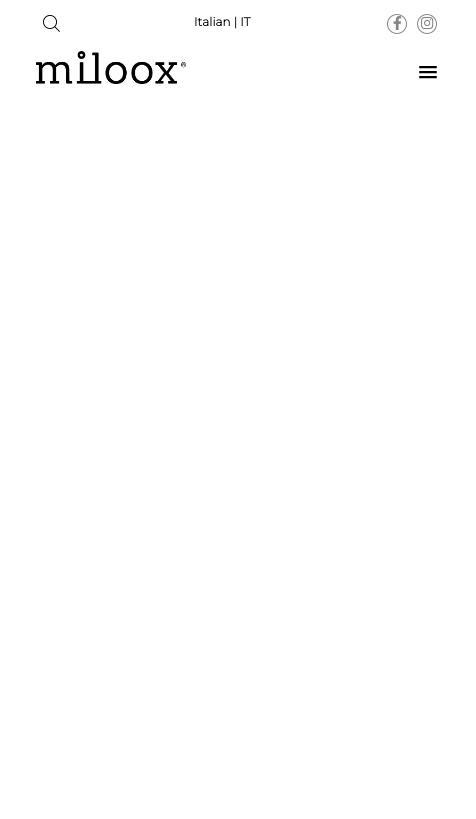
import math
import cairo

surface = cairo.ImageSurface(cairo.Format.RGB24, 476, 819)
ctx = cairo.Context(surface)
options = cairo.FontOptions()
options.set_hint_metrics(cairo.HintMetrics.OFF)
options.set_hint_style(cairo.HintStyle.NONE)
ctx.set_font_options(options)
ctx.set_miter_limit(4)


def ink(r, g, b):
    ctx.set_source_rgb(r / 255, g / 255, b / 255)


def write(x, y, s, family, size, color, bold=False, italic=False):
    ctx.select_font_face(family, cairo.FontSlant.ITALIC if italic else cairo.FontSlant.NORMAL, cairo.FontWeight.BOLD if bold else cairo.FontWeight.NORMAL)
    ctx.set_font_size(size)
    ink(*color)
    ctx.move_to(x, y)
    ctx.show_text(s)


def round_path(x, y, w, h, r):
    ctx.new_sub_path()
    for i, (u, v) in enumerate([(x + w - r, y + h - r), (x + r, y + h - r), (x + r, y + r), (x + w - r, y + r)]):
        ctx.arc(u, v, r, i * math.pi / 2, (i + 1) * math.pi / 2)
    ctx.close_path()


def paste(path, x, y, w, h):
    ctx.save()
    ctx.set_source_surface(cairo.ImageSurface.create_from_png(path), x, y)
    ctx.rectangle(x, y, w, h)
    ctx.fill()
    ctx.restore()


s1 = dict(family="Montserrat", size=12, color=(0, 0, 0), bold=True)

ink(255, 255, 255)
ctx.paint()
paste("pic1.png", 43, 15, 17, 17)
write(194, 26, "Italian | IT", **s1)
ctx.new_path()
ctx.arc(397, 24, 9.5, 0, 2 * math.pi)
ink(134, 134, 134)
ctx.set_line_width(1)
ctx.stroke()
paste("pic2.png", 393, 16, 9, 14)
ctx.arc(427, 24, 9.5, 0, 2 * math.pi)
ctx.stroke()
paste("pic3.png", 421, 16, 13, 14)
paste("pic4.png", 36, 51, 150, 33)
ink(191, 191, 191)
ctx.new_path()
ctx.move_to(419, 67.5)
ctx.curve_to(418, 69.5, 422.5, 69, 422.5, 69)
ctx.line_to(433.5, 69)
ctx.curve_to(433.5, 69, 438, 69.5, 437, 67.5)
ctx.curve_to(436, 68.5, 429.5, 68, 428, 68)
ctx.curve_to(426.5, 68, 420, 68.5, 419, 67.5)
ctx.close_path()
ctx.fill()
ink(0, 0, 0)
round_path(419, 66, 18, 2, 1)
ctx.fill()
ink(191, 191, 191)
ctx.new_path()
ctx.move_to(419, 72.5)
ctx.curve_to(418, 74.5, 422.5, 74, 422.5, 74)
ctx.line_to(433.5, 74)
ctx.curve_to(433.5, 74, 438, 74.5, 437, 72.5)
ctx.curve_to(436, 73.5, 429.5, 73, 428, 73)
ctx.curve_to(426.5, 73, 420, 73.5, 419, 72.5)
ctx.close_path()
ctx.fill()
ink(0, 0, 0)
round_path(419, 71, 18, 2, 1)
ctx.fill()
ink(191, 191, 191)
ctx.new_path()
ctx.move_to(419, 77.5)
ctx.curve_to(418, 79.5, 422.5, 79, 422.5, 79)
ctx.line_to(433.5, 79)
ctx.curve_to(433.5, 79, 438, 79.5, 437, 77.5)
ctx.curve_to(436, 78.5, 429.5, 78, 428, 78)
ctx.curve_to(426.5, 78, 420, 78.5, 419, 77.5)
ctx.close_path()
ctx.fill()
ink(0, 0, 0)
round_path(419, 76, 18, 2, 1)
ctx.fill()
surface.write_to_png("screenshot.png")
